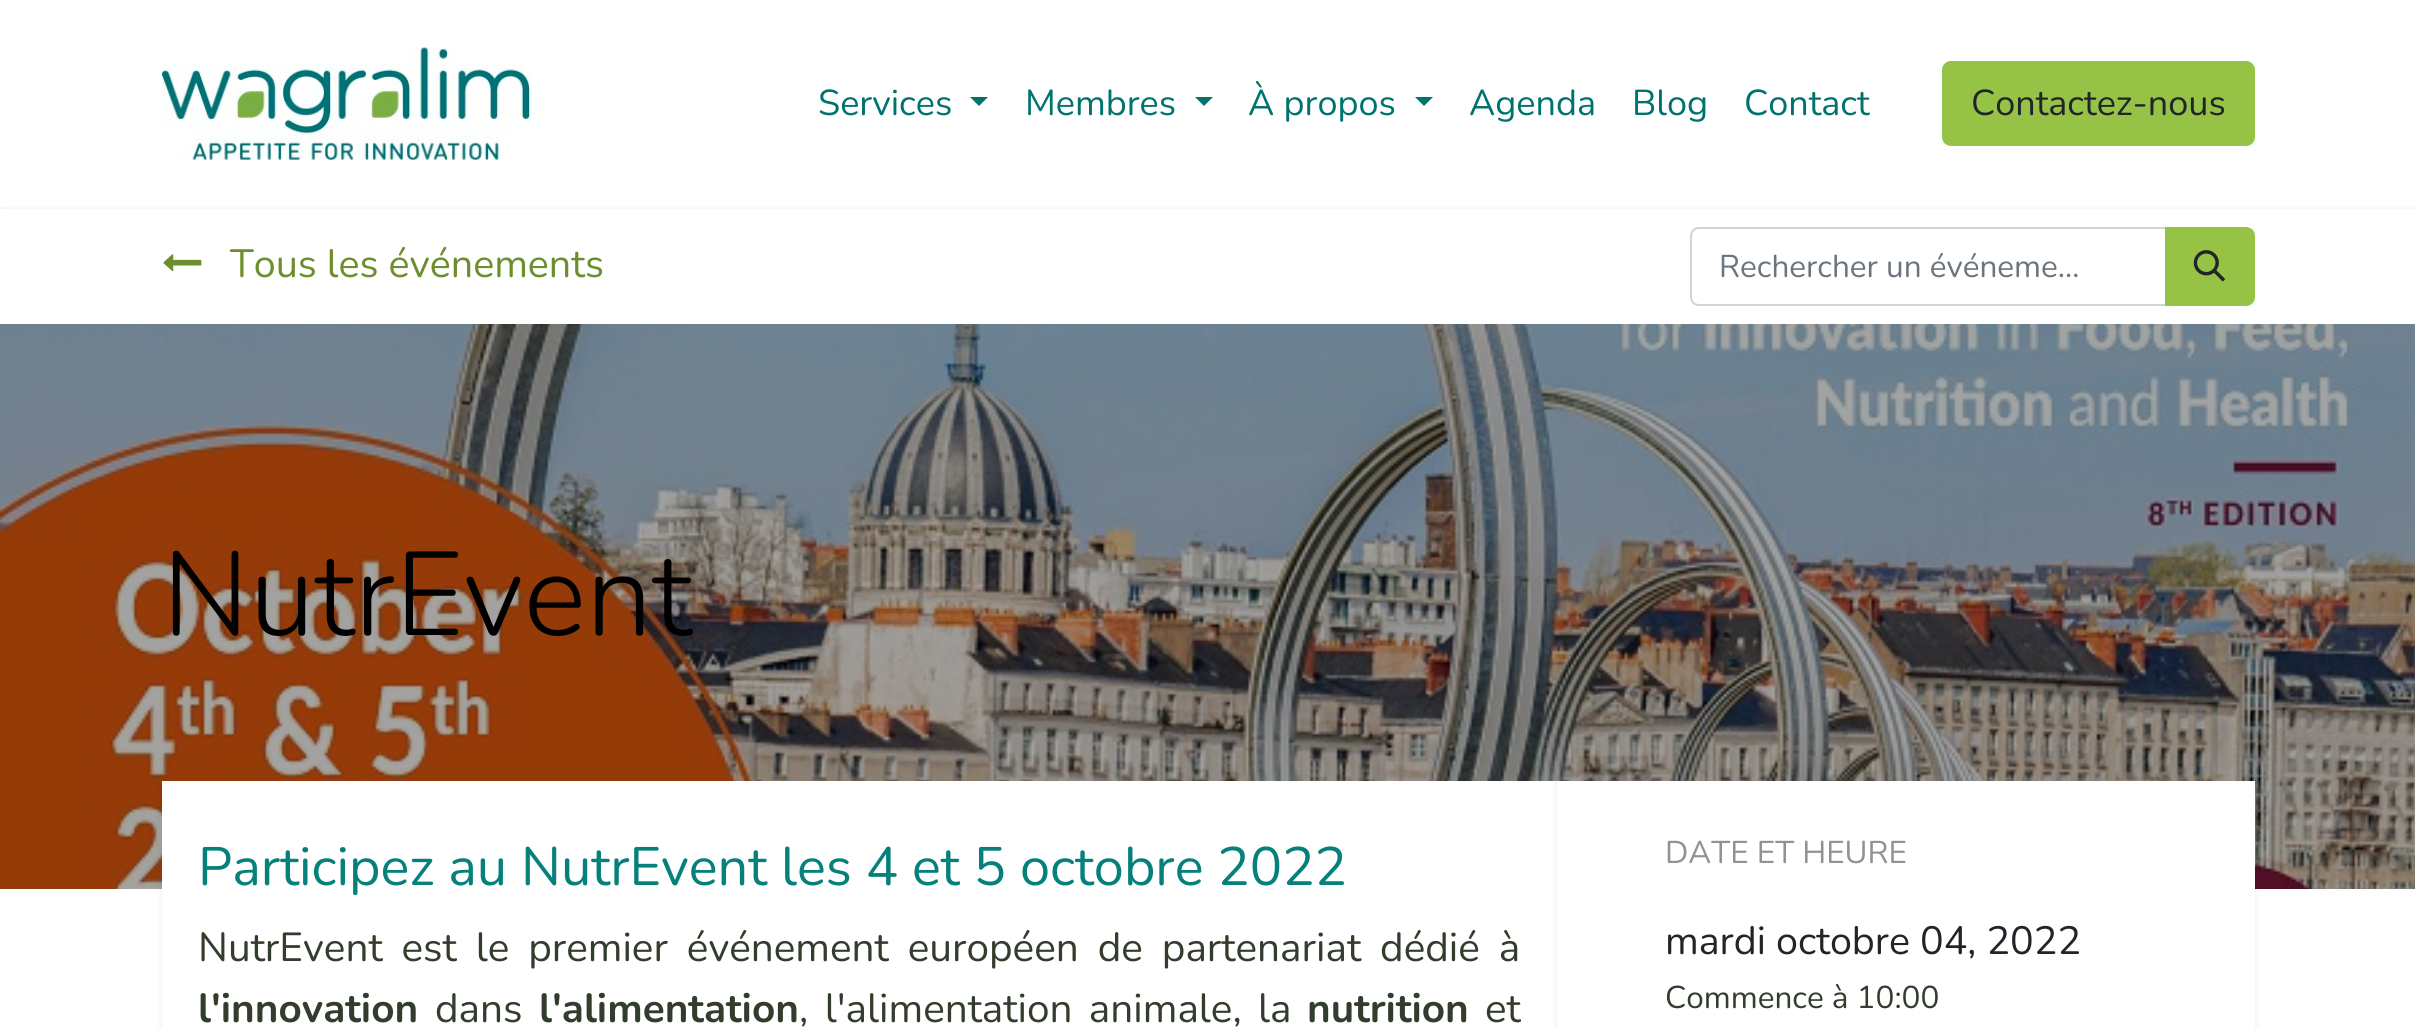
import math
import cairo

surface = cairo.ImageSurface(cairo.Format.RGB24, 2415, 1028)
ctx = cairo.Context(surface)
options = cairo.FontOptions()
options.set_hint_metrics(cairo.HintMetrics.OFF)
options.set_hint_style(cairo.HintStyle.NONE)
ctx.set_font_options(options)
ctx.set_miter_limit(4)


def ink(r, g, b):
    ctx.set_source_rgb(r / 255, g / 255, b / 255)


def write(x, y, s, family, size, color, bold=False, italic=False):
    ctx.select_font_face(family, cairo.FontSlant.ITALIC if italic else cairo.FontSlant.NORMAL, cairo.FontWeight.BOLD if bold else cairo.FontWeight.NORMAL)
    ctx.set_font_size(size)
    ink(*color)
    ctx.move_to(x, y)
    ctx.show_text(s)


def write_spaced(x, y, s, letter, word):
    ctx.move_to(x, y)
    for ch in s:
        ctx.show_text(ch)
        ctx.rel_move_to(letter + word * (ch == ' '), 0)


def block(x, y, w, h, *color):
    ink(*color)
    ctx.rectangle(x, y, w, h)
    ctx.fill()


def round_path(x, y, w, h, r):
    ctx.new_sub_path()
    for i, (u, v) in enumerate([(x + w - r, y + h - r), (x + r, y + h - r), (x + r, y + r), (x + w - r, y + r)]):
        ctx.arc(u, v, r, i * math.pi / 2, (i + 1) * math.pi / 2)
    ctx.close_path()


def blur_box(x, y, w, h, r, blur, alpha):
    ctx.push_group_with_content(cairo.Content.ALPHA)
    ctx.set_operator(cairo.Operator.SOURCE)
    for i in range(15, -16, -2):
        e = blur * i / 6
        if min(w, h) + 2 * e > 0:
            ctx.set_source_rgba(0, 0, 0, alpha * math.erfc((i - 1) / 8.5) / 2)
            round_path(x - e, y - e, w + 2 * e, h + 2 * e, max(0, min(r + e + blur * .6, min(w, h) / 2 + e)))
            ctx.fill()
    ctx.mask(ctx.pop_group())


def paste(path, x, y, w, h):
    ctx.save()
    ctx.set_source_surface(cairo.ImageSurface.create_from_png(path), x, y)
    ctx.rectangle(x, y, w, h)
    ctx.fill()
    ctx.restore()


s1 = dict(family="Nunito", size=36, color=(0, 115, 110))
s2 = dict(family="Nunito", size=36, color=(33, 37, 41))
s3 = dict(family="Nunito", size=39.4, color=(108, 142, 46))
s4 = dict(family="Nunito", size=31.5, color=(108, 117, 125))
s5 = dict(family="Nunito Light", size=118.5, color=(0, 0, 0))
s6 = dict(family="Nunito", size=54, color=(5, 128, 123))
s7 = dict(family="Nunito", size=40.5, color=(51, 61, 45), bold=True)
s8 = dict(family="Nunito", size=40.5, color=(51, 61, 45))
s9 = dict(family="Nunito", size=31.5, color=(144, 146, 148))
s10 = dict(family="Nunito", size=39.4, color=(33, 37, 41))
s11 = dict(family="Nunito", size=31.5, color=(51, 61, 45))

ink(255, 255, 255)
ctx.paint()
block(0, 207, 2415, 2, 222, 226, 230)
ink(255, 255, 255)
blur_box(0, 5, 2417, 207, 0, 4.5, 1)
paste("pic1.png", 162, 47, 369, 113)
write(818, 115, "Services", **s1)
ctx.new_path()
ctx.move_to(970, 97)
ctx.line_to(988, 97)
ctx.line_to(979, 106)
ctx.close_path()
ctx.fill()
write(1025, 115, "Membres", **s1)
ctx.new_path()
ctx.move_to(1195, 97)
ctx.line_to(1213, 97)
ctx.line_to(1204, 106)
ctx.close_path()
ctx.fill()
write(1248, 115, "À propos", **s1)
ctx.new_path()
ctx.move_to(1415, 97)
ctx.line_to(1433, 97)
ctx.line_to(1424, 106)
ctx.close_path()
ctx.fill()
write(1469, 115, "Agenda", **s1)
write(1632, 115, "Blog", **s1)
write(1744, 115, "Contact", **s1)
ink(150, 195, 70)
round_path(1943, 62, 311, 83, 8)
ctx.fill_preserve()
ctx.stroke()
write(1971, 115, "Contactez-nous", **s2)
paste("pic2.png", 163, 254, 39, 18)
write(230, 277, "Tous les événements", **s3)
ctx.new_path()
ctx.move_to(1699, 228)
ctx.line_to(2166, 228)
ctx.line_to(2166, 305)
ctx.line_to(1699, 305)
ctx.curve_to(1694.5, 305, 1691, 301.5, 1691, 297)
ctx.line_to(1691, 236)
ctx.curve_to(1691, 231.5, 1694.5, 228, 1699, 228)
ctx.close_path()
ink(206, 212, 218)
ctx.stroke()
write(1719, 277, "Rechercher un événeme…", **s4)
ink(150, 195, 70)
ctx.new_path()
ctx.move_to(2166, 228)
ctx.line_to(2246, 228)
ctx.curve_to(2250.5, 228, 2254, 231.5, 2254, 236)
ctx.line_to(2254, 297)
ctx.curve_to(2254, 301.5, 2250.5, 305, 2246, 305)
ctx.line_to(2166, 305)
ctx.close_path()
ctx.fill_preserve()
ctx.stroke()
paste("pic3.png", 2193, 250, 33, 32)
paste("pic4.png", 0, 324, 2415, 565)
write(162, 635, "NutrEvent", **s5)
ctx.save()
ctx.rectangle(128, 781, 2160, 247)
ctx.clip()
ink(0, 0, 0)
blur_box(162, 731, 1395, 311, 0, 4.5, 0.07)
ctx.restore()
block(162, 781, 1395, 247, 255, 255, 255)
write(198, 885, "Participez au NutrEvent les 4 et 5 octobre 2022", **s6)
ctx.set_font_size(40.5)
ink(51, 61, 45)
write_spaced(198, 961, "NutrEvent est le premier événement européen de partenariat dédié à", 0, 8.5)
write(198, 1022, "l'innovation", **s7)
write(435, 1022, "dans", **s8)
write(539, 1022, "l'alimentation", **s7)
ctx.select_font_face("Nunito")
write_spaced(799, 1022, ", l'alimentation animale, la", 0, 6)
write(1307, 1022, "nutrition", **s7)
write(1485, 1022, "et", **s8)
ctx.save()
ctx.rectangle(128, 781, 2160, 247)
ctx.clip()
ink(0, 0, 0)
blur_box(1557, 731, 698, 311, 0, 4.5, 0.07)
ctx.restore()
block(1557, 781, 698, 247, 255, 255, 255)
write(1665, 863, "DATE ET HEURE", **s9)
write(1665, 954, "mardi octobre 04, 2022", **s10)
write(1665, 1008, "Commence à 10:00", **s11)
surface.write_to_png("screenshot.png")
